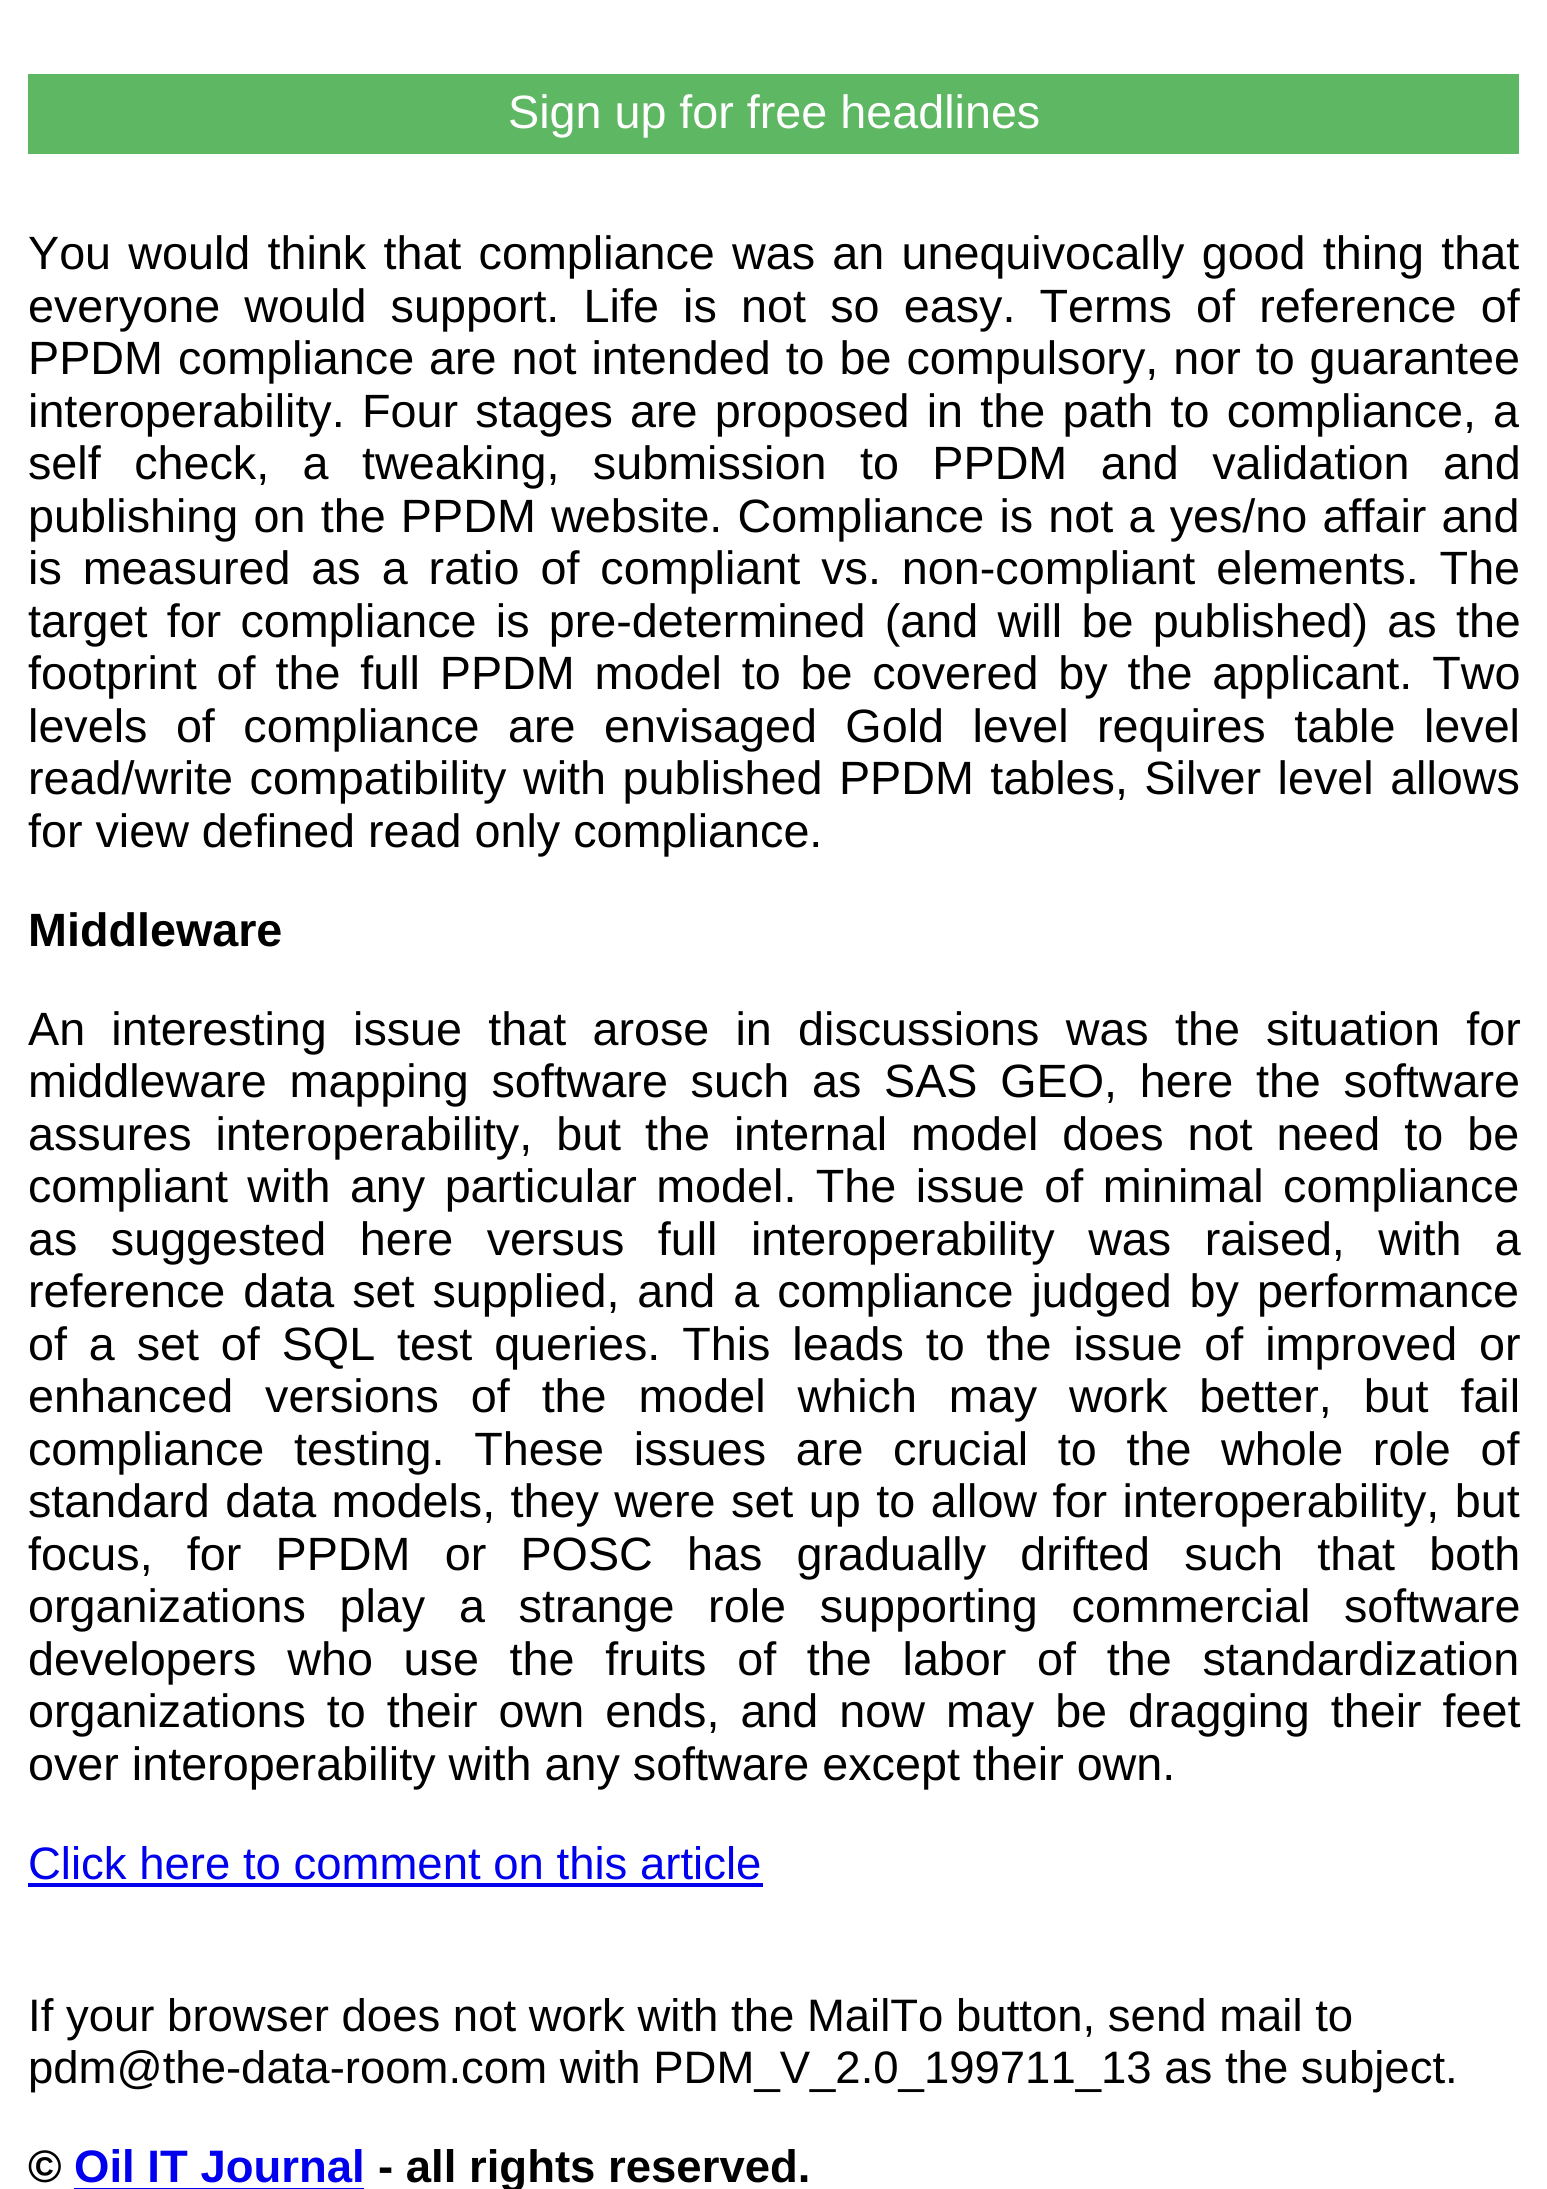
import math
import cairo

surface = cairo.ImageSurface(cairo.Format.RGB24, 1547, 2189)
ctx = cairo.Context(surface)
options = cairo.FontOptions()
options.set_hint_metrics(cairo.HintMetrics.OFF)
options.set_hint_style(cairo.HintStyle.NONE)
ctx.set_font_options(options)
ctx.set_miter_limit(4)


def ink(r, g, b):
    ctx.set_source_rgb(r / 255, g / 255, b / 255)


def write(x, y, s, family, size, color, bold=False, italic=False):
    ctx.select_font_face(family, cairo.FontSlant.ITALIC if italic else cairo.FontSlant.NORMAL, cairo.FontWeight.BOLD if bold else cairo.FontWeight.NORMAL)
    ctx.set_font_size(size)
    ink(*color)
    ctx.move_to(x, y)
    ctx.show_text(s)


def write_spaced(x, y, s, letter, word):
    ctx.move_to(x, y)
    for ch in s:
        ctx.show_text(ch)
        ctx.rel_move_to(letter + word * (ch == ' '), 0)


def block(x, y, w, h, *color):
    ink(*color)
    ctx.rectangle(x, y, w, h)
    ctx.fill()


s1 = dict(family="Liberation Sans", size=46.7, color=(255, 255, 255))
s2 = dict(family="Liberation Sans", size=46.7, color=(0, 0, 0))
s3 = dict(family="Liberation Sans", size=46.7, color=(0, 0, 0), bold=True)
s4 = dict(family="Liberation Sans", size=45.5, color=(0, 0, 238))
s5 = dict(family="Liberation Sans", size=45.5, color=(0, 0, 0))
s6 = dict(family="Liberation Sans", size=45.5, color=(0, 0, 0), bold=True)
s7 = dict(family="Liberation Sans", size=45.5, color=(0, 0, 238), bold=True)

ink(255, 255, 255)
ctx.paint()
block(28, 74, 1491, 80, 94, 183, 98)
write(508, 128, "Sign up for free headlines", **s1)
ink(0, 0, 0)
write_spaced(28, 269, "You would think that compliance was an unequivocally good thing that", 0, 4.25)
write_spaced(28, 322, "everyone would support. Life is not so easy. Terms of reference of", 0, 11.25)
write_spaced(28, 374, "PPDM compliance are not intended to be compulsory, nor to guarantee", 0, 2)
write_spaced(28, 427, "interoperability. Four stages are proposed in the path to compliance, a", 0, 4.25)
write_spaced(28, 479, "self check, a tweaking, submission to PPDM and validation and", 0, 20.5)
write_spaced(28, 532, "publishing on the PPDM website. Compliance is not a yes/no affair and", 0, 2.25)
write_spaced(28, 584, "is measured as a ratio of compliant vs. non-compliant elements. The", 0, 8)
write_spaced(28, 637, "target for compliance is pre-determined (and will be published) as the", 0, 6.25)
write_spaced(28, 689, "footprint of the full PPDM model to be covered by the applicant. Two", 0, 6.9)
write_spaced(28, 742, "levels of compliance are envisaged Gold level requires table level", 0, 15.5)
write_spaced(28, 794, "read/write compatibility with published PPDM tables, Silver level allows", 0, 3.5)
write(28, 847, "for view defined read only compliance.", **s2)
write(28, 946, "Middleware", **s3)
ctx.select_font_face("Liberation Sans")
write_spaced(28, 1045, "An interesting issue that arose in discussions was the situation for", 0, 13.25)
write_spaced(28, 1097, "middleware mapping software such as SAS GEO, here the software", 0, 9.75)
write_spaced(28, 1150, "assures interoperability, but the internal model does not need to be", 0, 11)
write_spaced(28, 1202, "compliant with any particular model. The issue of minimal compliance", 0, 6.5)
write_spaced(28, 1255, "as suggested here versus full interoperability was raised, with a", 0, 20.5)
write_spaced(28, 1307, "reference data set supplied, and a compliance judged by performance", 0, 5)
write_spaced(28, 1360, "of a set of SQL test queries. This leads to the issue of improved or", 0, 8.9)
write_spaced(28, 1412, "enhanced versions of the model which may work better, but fail", 0, 18.9)
write_spaced(28, 1465, "compliance testing. These issues are crucial to the whole role of", 0, 16.75)
write_spaced(28, 1517, "standard data models, they were set up to allow for interoperability, but", 0, 2.5)
write_spaced(28, 1570, "focus, for PPDM or POSC has gradually drifted such that both", 0, 21.25)
write_spaced(28, 1622, "organizations play a strange role supporting commercial software", 0, 20.75)
write_spaced(28, 1675, "developers who use the fruits of the labor of the standardization", 0, 17.75)
write_spaced(28, 1727, "organizations to their own ends, and now may be dragging their feet", 0, 8)
write(28, 1780, "over interoperability with any software except their own.", **s2)
write(28, 1879, "Click here to comment on this article", **s4)
block(28, 1883, 735, 4, 0, 0, 238)
write(28, 2031, "If your browser does not work with the MailTo button, send mail to", **s5)
write(28, 2083, "pdm@the-data-room.com with PDM_V_2.0_199711_13 as the subject.", **s5)
write(28, 2182, "©", **s6)
write(74, 2182, "Oil IT Journal", **s7)
block(74, 2188, 290, 1, 0, 0, 238)
write(378, 2182, "- all rights reserved.", **s6)
surface.write_to_png("screenshot.png")
